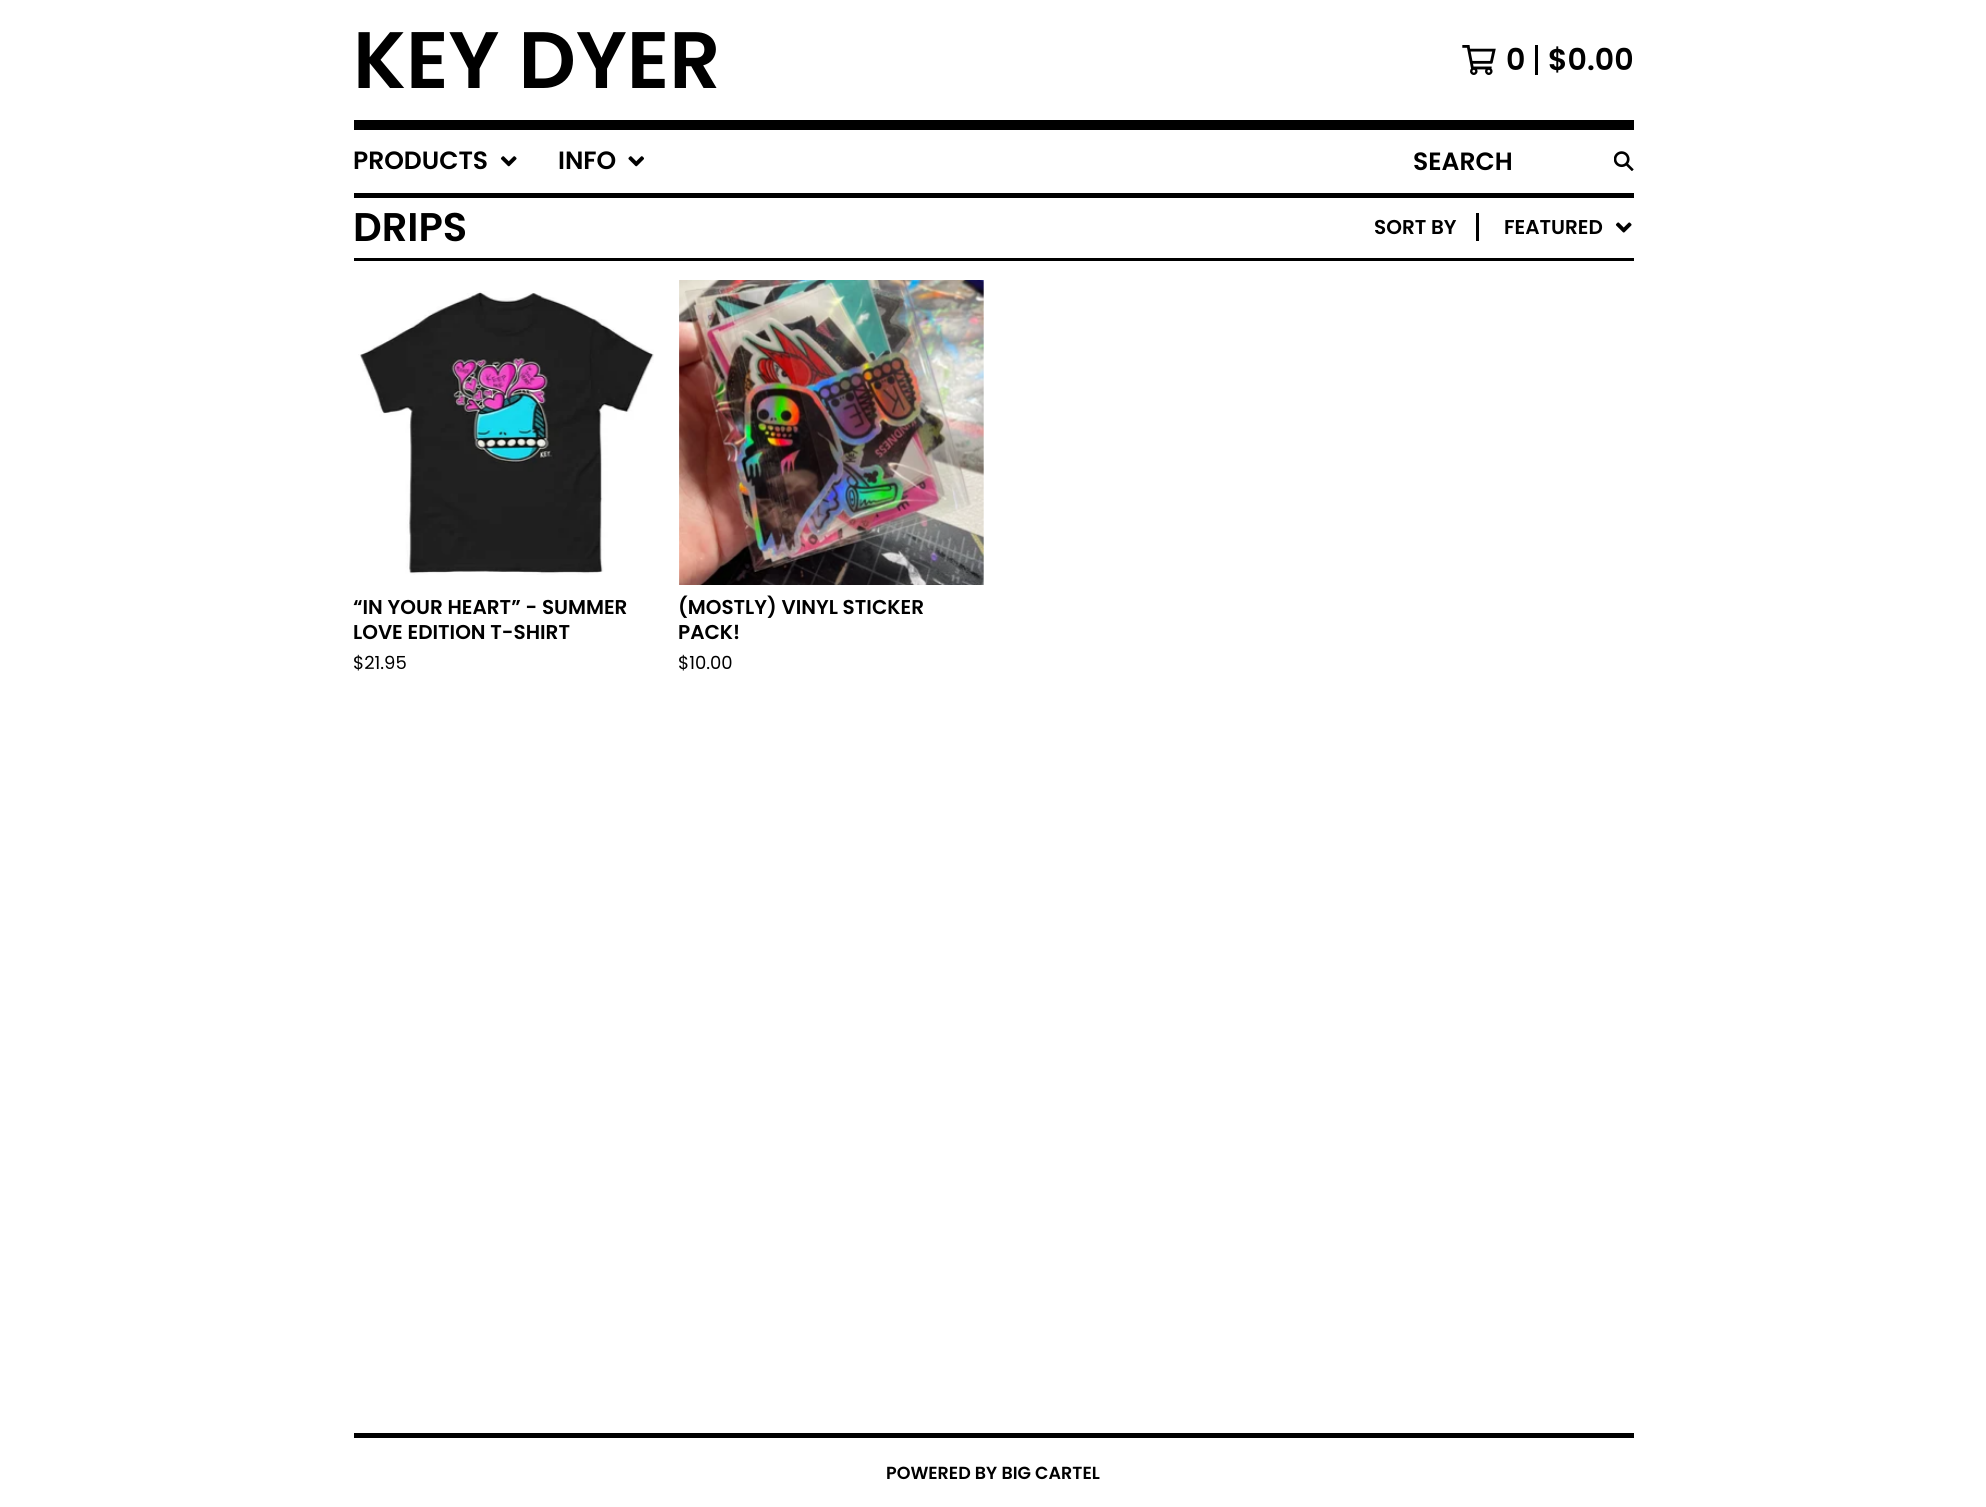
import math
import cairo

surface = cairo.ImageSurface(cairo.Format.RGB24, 1986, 1507)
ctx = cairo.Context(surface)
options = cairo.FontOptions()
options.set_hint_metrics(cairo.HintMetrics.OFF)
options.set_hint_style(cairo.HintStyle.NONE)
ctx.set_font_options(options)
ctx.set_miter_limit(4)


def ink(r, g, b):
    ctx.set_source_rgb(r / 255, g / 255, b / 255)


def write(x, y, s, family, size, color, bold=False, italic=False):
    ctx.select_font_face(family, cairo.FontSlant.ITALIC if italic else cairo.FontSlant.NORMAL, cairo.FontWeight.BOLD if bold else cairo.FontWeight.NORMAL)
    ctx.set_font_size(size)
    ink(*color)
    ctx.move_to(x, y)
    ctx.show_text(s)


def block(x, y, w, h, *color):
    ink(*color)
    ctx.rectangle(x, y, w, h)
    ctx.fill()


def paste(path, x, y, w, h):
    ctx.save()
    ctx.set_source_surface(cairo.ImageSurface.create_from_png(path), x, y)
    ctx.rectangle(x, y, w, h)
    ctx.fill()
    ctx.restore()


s1 = dict(family="Poppins SemiBold", size=80, color=(0, 0, 0))
s2 = dict(family="Poppins SemiBold", size=30, color=(0, 0, 0))
s3 = dict(family="Poppins SemiBold", size=25, color=(0, 0, 0))
s4 = dict(family="Poppins SemiBold", size=40, color=(0, 0, 0))
s5 = dict(family="Poppins SemiBold", size=20, color=(0, 0, 0))
s6 = dict(family="Poppins", size=18, color=(0, 0, 0))
s7 = dict(family="Poppins SemiBold", size=17.5, color=(0, 0, 0))

ink(255, 255, 255)
ctx.paint()
block(354, 120, 1280, 10, 0, 0, 0)
write(353, 88, "KEY DYER", **s1)
paste("pic1.png", 1462, 45, 34, 30)
block(1535, 45, 3, 30, 0, 0, 0)
write(1506, 70, "0", **s2)
write(1548, 70, "$0.00", **s2)
block(354, 193, 1280, 5, 0, 0, 0)
write(353, 169, "PRODUCTS", **s3)
paste("pic2.png", 500, 156, 17, 11)
write(558, 169, "INFO", **s3)
paste("pic3.png", 628, 156, 16, 11)
write(1413, 170, "SEARCH", **s3)
paste("pic4.png", 1614, 151, 20, 20)
block(354, 258, 1280, 3, 0, 0, 0)
write(353, 241, "DRIPS", **s4)
write(1374, 234, "SORT BY", **s5)
block(1476, 213, 3, 28, 0, 0, 0)
write(1504, 234, "FEATURED", **s5)
paste("pic5.png", 1615, 222, 17, 11)
paste("pic6.png", 358, 291, 296, 284)
write(353, 614, "“IN YOUR HEART” - SUMMER", **s5)
write(353, 639, "LOVE EDITION T-SHIRT", **s5)
write(353, 669, "$21.95", **s6)
paste("pic7.png", 679, 280, 305, 305)
write(678, 614, "(MOSTLY) VINYL STICKER", **s5)
write(678, 639, "PACK!", **s5)
write(678, 669, "$10.00", **s6)
block(354, 1433, 1280, 5, 0, 0, 0)
write(886, 1479, "POWERED BY BIG CARTEL", **s7)
surface.write_to_png("screenshot.png")
